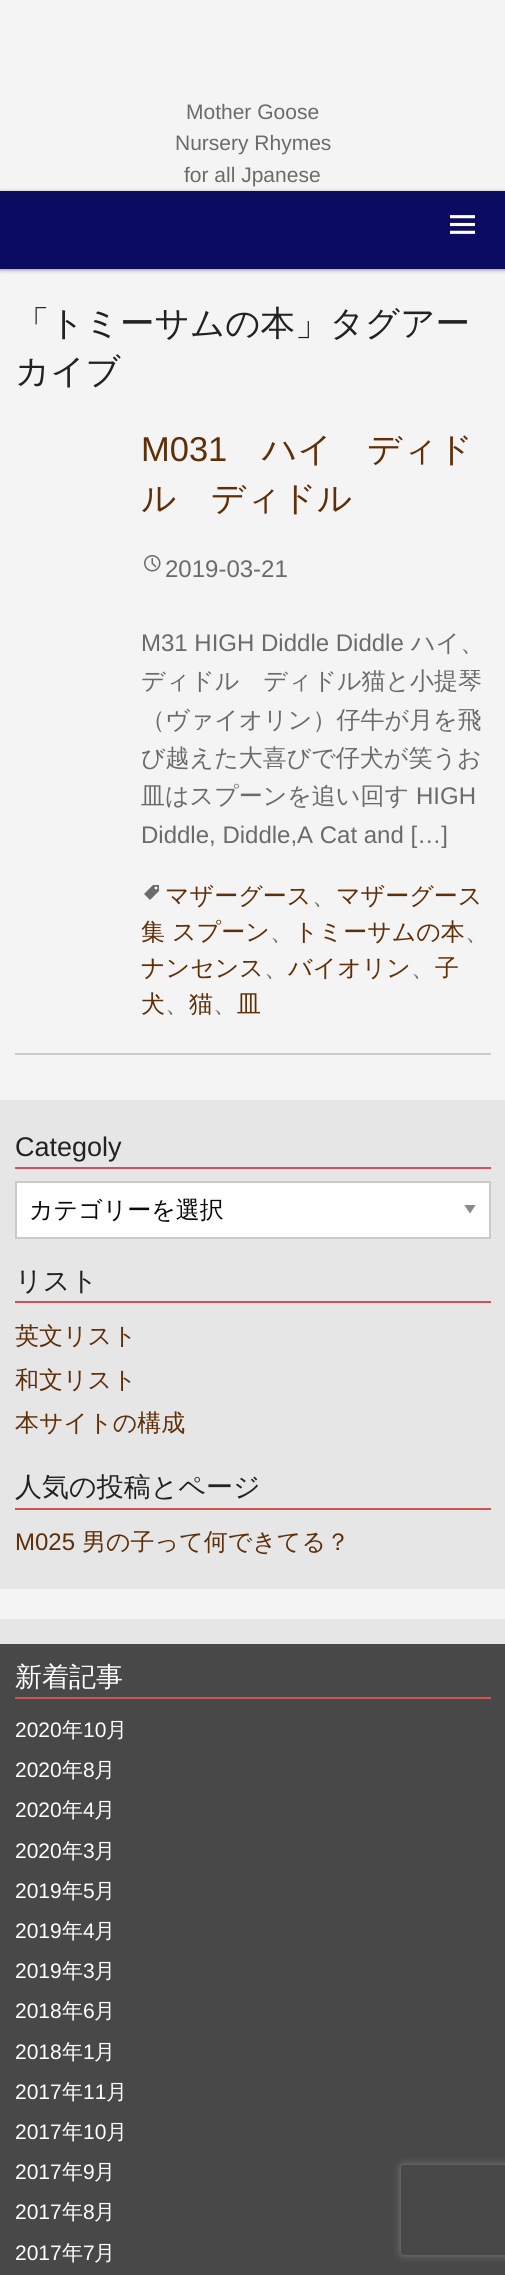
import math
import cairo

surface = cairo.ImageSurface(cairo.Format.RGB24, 505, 2275)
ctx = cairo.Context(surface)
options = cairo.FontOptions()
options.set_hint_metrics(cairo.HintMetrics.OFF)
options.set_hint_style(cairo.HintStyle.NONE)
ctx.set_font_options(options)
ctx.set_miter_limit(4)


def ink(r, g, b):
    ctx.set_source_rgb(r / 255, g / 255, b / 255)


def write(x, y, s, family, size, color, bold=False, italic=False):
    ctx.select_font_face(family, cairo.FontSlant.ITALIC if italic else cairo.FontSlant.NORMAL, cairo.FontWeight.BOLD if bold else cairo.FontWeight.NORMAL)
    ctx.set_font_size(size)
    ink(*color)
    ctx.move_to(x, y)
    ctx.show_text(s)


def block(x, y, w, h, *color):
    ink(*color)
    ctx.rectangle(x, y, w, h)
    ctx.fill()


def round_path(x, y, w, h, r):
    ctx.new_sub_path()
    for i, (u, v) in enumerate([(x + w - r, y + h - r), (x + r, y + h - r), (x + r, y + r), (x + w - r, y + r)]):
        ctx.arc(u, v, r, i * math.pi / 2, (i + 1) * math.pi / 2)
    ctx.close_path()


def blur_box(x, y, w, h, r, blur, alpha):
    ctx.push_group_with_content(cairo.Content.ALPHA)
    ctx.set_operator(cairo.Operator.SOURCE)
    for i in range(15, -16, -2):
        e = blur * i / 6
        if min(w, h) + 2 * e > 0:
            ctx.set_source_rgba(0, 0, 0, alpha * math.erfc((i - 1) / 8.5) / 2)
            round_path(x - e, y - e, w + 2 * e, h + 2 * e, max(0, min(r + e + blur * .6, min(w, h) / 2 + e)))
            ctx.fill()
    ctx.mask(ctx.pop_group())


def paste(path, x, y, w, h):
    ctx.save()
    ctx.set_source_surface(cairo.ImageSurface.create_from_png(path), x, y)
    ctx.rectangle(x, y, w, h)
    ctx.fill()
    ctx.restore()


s1 = dict(family="Liberation Sans", size=21, color=(107, 107, 107))
s2 = dict(family="WenQuanYi Zen Hei Medium", size=34.5, color=(34, 34, 34))
s3 = dict(family="Liberation Sans", size=34.5, color=(95, 47, 8))
s4 = dict(family="WenQuanYi Zen Hei Medium", size=34.5, color=(95, 47, 8))
s5 = dict(family="Liberation Sans", size=24, color=(107, 107, 107))
s6 = dict(family="WenQuanYi Zen Hei Medium", size=24, color=(107, 107, 107))
s7 = dict(family="WenQuanYi Zen Hei Medium", size=24, color=(95, 47, 8))
s8 = dict(family="Liberation Sans", size=27, color=(34, 34, 34))
s9 = dict(family="WenQuanYi Zen Hei Medium", size=24, color=(10, 10, 10))
s10 = dict(family="WenQuanYi Zen Hei Medium", size=27, color=(34, 34, 34))
s11 = dict(family="Liberation Sans", size=24, color=(95, 47, 8))
s12 = dict(family="WenQuanYi Zen Hei Medium", size=27, color=(255, 255, 255))
s13 = dict(family="Liberation Sans", size=21, color=(255, 255, 255))
s14 = dict(family="WenQuanYi Zen Hei Medium", size=21, color=(255, 255, 255))

ink(244, 244, 244)
ctx.paint()
write(186, 119, "Mother Goose", **s1)
write(175, 150, "Nursery Rhymes", **s1)
write(184, 182, "for all Jpanese", **s1)
ink(0, 0, 0)
blur_box(0, 192, 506, 78, 0, 2, 0.4)
block(0, 191, 505, 78, 11, 11, 97)
paste("pic1.png", 450, 215, 25, 19)
write(15, 335, "「トミーサムの本」タグアー", **s2)
write(15, 383, "カイブ", **s2)
block(15, 1053, 476, 2, 204, 204, 204)
write(141, 461, "M031", **s3)
write(262, 461, "ハイ　ディド", **s4)
write(141, 510, "ル　ディドル", **s4)
paste("pic2.png", 144, 555, 17, 17)
write(165, 577, "2019-03-21", **s5)
write(141, 651, "M31 HIGH Diddle Diddle", **s5)
write(411, 651, "ハイ、", **s6)
write(141, 689, "ディドル　ディドル猫と小提琴", **s6)
write(141, 728, "（ヴァイオリン）仔牛が月を飛", **s6)
write(141, 766, "び越えた大喜びで仔犬が笑うお", **s6)
write(141, 804, "皿はスプーンを追い回す", **s6)
write(416, 804, "HIGH", **s5)
write(141, 843, "Diddle, Diddle,A Cat and […]", **s5)
paste("pic3.png", 144, 885, 15, 15)
write(165, 904, "マザーグース", **s7)
write(336, 904, "マザーグース", **s7)
write(312, 904, "、", **s6)
write(141, 940, "集", **s7)
write(172, 940, "スプーン", **s7)
write(270, 940, "、", **s6)
write(294, 940, "トミーサムの本", **s7)
write(465, 940, "、", **s6)
write(141, 976, "ナンセンス", **s7)
write(264, 976, "、", **s6)
write(288, 976, "バイオリン", **s7)
write(411, 976, "、", **s6)
write(435, 976, "子", **s7)
write(141, 1012, "犬", **s7)
write(165, 1012, "、", **s6)
write(189, 1012, "猫", **s7)
write(213, 1012, "、", **s6)
write(237, 1012, "皿", **s7)
block(0, 1100, 505, 489, 230, 230, 230)
block(15, 1167, 476, 2, 208, 82, 82)
write(15, 1156, "Categoly", **s8)
block(17, 1183, 472, 54, 254, 254, 254)
ctx.save()
ctx.rectangle(464, 1205, 13, 9)
ctx.clip()
ink(138, 138, 138)
ctx.new_path()
ctx.move_to(464, 1204.5)
ctx.line_to(476, 1204.5)
ctx.line_to(470, 1213.5)
ctx.close_path()
ctx.fill()
ctx.restore()
ctx.rectangle(16, 1182, 474, 56)
ink(202, 202, 202)
ctx.stroke()
write(29, 1218, "カテゴリーを選択", **s9)
block(15, 1301, 476, 2, 208, 82, 82)
write(15, 1290, "リスト", **s10)
write(15, 1344, "英文リスト", **s7)
write(15, 1388, "和文リスト", **s7)
write(15, 1431, "本サイトの構成", **s7)
block(15, 1508, 476, 2, 208, 82, 82)
write(15, 1496, "人気の投稿とページ", **s10)
write(15, 1550, "M025", **s11)
write(82, 1550, "男の子って何できてる？", **s7)
block(0, 1619, 505, 25, 230, 230, 230)
block(0, 1644, 505, 631, 72, 72, 72)
block(15, 1697, 476, 2, 208, 82, 82)
write(15, 1686, "新着記事", **s12)
write(15, 1737, "2020", **s13)
write(62, 1737, "年", **s14)
write(83, 1737, "10", **s13)
write(106, 1737, "月", **s14)
write(15, 1777, "2020", **s13)
write(62, 1777, "年", **s14)
write(83, 1777, "8", **s13)
write(94, 1777, "月", **s14)
write(15, 1817, "2020", **s13)
write(62, 1817, "年", **s14)
write(83, 1817, "4", **s13)
write(94, 1817, "月", **s14)
write(15, 1858, "2020", **s13)
write(62, 1858, "年", **s14)
write(83, 1858, "3", **s13)
write(94, 1858, "月", **s14)
write(15, 1898, "2019", **s13)
write(62, 1898, "年", **s14)
write(83, 1898, "5", **s13)
write(94, 1898, "月", **s14)
write(15, 1938, "2019", **s13)
write(62, 1938, "年", **s14)
write(83, 1938, "4", **s13)
write(94, 1938, "月", **s14)
write(15, 1978, "2019", **s13)
write(62, 1978, "年", **s14)
write(83, 1978, "3", **s13)
write(94, 1978, "月", **s14)
write(15, 2018, "2018", **s13)
write(62, 2018, "年", **s14)
write(83, 2018, "6", **s13)
write(94, 2018, "月", **s14)
write(15, 2059, "2018", **s13)
write(62, 2059, "年", **s14)
write(83, 2059, "1", **s13)
write(94, 2059, "月", **s14)
write(15, 2099, "2017", **s13)
write(62, 2099, "年", **s14)
write(83, 2099, "11", **s13)
write(106, 2099, "月", **s14)
write(15, 2139, "2017", **s13)
write(62, 2139, "年", **s14)
write(83, 2139, "10", **s13)
write(106, 2139, "月", **s14)
write(15, 2179, "2017", **s13)
write(62, 2179, "年", **s14)
write(83, 2179, "9", **s13)
write(94, 2179, "月", **s14)
write(15, 2219, "2017", **s13)
write(62, 2219, "年", **s14)
write(83, 2219, "8", **s13)
write(94, 2219, "月", **s14)
write(15, 2260, "2017", **s13)
write(62, 2260, "年", **s14)
write(83, 2260, "7", **s13)
write(94, 2260, "月", **s14)
ctx.save()
ctx.set_fill_rule(cairo.FillRule.EVEN_ODD)
ctx.new_path()
ctx.move_to(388, 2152)
ctx.line_to(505, 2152)
ctx.line_to(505, 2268)
ctx.line_to(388, 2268)
ctx.close_path()
ctx.move_to(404, 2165)
ctx.line_to(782, 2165)
ctx.curve_to(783.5, 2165, 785, 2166.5, 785, 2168)
ctx.line_to(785, 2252)
ctx.curve_to(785, 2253.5, 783.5, 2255, 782, 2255)
ctx.line_to(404, 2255)
ctx.curve_to(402.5, 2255, 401, 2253.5, 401, 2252)
ctx.line_to(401, 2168)
ctx.curve_to(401, 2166.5, 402.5, 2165, 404, 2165)
ctx.close_path()
ctx.clip()
ink(128, 128, 128)
blur_box(401, 2165, 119, 90, 3, 4, 1)
ctx.restore()
surface.write_to_png("screenshot.png")
